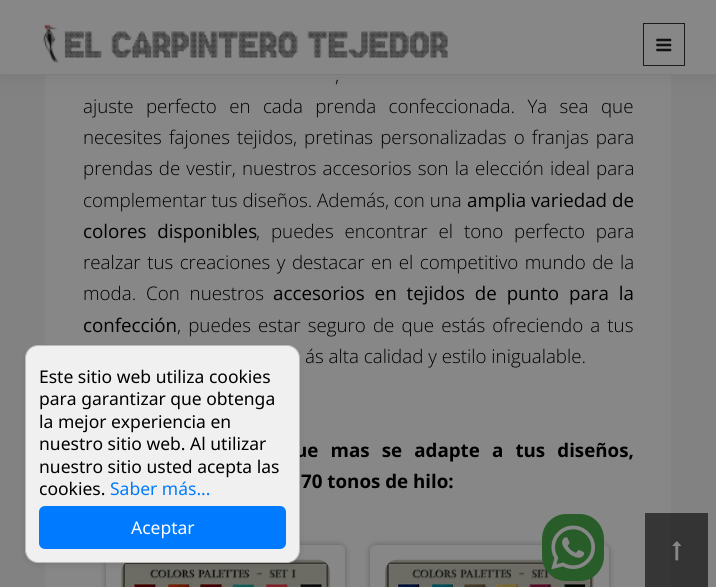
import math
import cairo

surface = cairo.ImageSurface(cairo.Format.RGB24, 716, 587)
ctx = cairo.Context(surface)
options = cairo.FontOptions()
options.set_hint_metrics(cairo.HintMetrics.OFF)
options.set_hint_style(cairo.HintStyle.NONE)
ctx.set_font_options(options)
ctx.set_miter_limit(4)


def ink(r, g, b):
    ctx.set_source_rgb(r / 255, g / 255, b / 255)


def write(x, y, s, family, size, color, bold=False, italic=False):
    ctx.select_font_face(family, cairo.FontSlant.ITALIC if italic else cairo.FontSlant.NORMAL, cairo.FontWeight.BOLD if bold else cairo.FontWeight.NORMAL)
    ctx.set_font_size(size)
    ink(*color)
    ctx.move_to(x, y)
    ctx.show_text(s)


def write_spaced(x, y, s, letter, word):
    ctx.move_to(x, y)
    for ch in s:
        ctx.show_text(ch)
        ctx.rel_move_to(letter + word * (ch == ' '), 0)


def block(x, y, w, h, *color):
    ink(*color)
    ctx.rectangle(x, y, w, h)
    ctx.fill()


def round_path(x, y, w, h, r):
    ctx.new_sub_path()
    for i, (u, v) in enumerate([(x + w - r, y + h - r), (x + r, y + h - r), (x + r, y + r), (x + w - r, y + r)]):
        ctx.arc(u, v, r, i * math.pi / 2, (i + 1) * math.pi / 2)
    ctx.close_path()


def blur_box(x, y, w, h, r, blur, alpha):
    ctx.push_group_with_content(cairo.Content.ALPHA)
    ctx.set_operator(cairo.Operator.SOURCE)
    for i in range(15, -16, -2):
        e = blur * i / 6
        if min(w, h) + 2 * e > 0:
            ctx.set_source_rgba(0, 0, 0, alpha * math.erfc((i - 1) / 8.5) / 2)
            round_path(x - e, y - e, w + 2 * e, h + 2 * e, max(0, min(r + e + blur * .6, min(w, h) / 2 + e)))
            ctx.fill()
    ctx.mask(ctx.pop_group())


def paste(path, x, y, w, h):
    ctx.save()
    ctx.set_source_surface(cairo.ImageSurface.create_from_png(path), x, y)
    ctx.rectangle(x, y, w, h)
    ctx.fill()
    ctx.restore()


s1 = dict(family="Open Sans Light", size=18.75, color=(0, 0, 0))
s2 = dict(family="Open Sans", size=18.75, color=(0, 0, 0))
s3 = dict(family="Open Sans", size=18.75, color=(0, 0, 0), bold=True)
s4 = dict(family="Noto Sans", size=17.5, color=(0, 0, 0))
s5 = dict(family="Noto Sans", size=17.5, color=(0, 123, 255))
s6 = dict(family="Noto Sans", size=17.5, color=(255, 255, 255))

ink(130, 130, 130)
ctx.paint()
block(45, 75, 626, 512, 135, 135, 135)
ink(0, 0, 0)
blur_box(0, -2, 716, 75, 0, 12, 0.1)
block(0, 0, 716, 74, 135, 135, 135)
paste("pic1.png", 43, 24, 405, 39)
ctx.rectangle(643.5, 23.5, 41, 42)
ink(27, 27, 27)
ctx.set_line_width(1)
ctx.stroke()
paste("pic2.png", 656, 38, 16, 14)
ctx.select_font_face("Open Sans Light")
ctx.set_font_size(18.75)
ink(0, 0, 0)
write_spaced(335, 82, ",", 0, 5)
write_spaced(83, 113, "ajuste perfecto en cada prenda confeccionada. Ya sea que", 0, 7.5)
write_spaced(83, 144, "necesites fajones tejidos, pretinas personalizadas o franjas para", 0, 2.25)
write_spaced(83, 175, "prendas de vestir, nuestros accesorios son la elección ideal para", 0, 1.25)
write(83, 207, "complementar tus diseños. Además, con una", **s1)
write(467, 207, "amplia variedad de", **s2)
write_spaced(83, 238, "colores disponibles", 0, 6)
ctx.select_font_face("Open Sans Light")
write_spaced(256, 238, ", puedes encontrar el tono perfecto para", 0, 6)
write_spaced(83, 269, "realzar tus creaciones y destacar en el competitivo mundo de la", 0, 1.6)
write_spaced(83, 300, "moda. Con nuestros", 0, 5)
ctx.select_font_face("Open Sans")
write_spaced(273, 300, "accesorios en tejidos de punto para la", 0, 5)
write(83, 332, "confección", **s2)
ctx.select_font_face("Open Sans Light")
write_spaced(177, 332, ", puedes estar seguro de que estás ofreciendo a tus", 0, 2.25)
write(305, 363, "ás alta calidad y estilo inigualable.", **s1)
ctx.select_font_face("Open Sans", cairo.FontSlant.NORMAL, cairo.FontWeight.BOLD)
write_spaced(295, 457, "ue mas se adapte a tus diseños,", 0, 7.25)
write(301, 488, "70 tonos de hilo:", **s3)
ctx.save()
ctx.set_fill_rule(cairo.FillRule.EVEN_ODD)
ctx.new_path()
ctx.move_to(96, 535)
ctx.line_to(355, 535)
ctx.line_to(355, 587)
ctx.line_to(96, 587)
ctx.close_path()
ctx.move_to(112, 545)
ctx.line_to(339, 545)
ctx.curve_to(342.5, 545, 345, 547.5, 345, 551)
ctx.line_to(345, 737)
ctx.curve_to(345, 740.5, 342.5, 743, 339, 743)
ctx.line_to(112, 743)
ctx.curve_to(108.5, 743, 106, 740.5, 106, 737)
ctx.line_to(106, 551)
ctx.curve_to(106, 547.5, 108.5, 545, 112, 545)
ctx.close_path()
ctx.clip()
ink(0, 0, 0)
blur_box(106, 545, 239, 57, 6, 3, 0.3)
ctx.restore()
paste("pic3.png", 121, 559, 209, 28)
ctx.save()
ctx.set_fill_rule(cairo.FillRule.EVEN_ODD)
ctx.new_path()
ctx.move_to(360, 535)
ctx.line_to(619, 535)
ctx.line_to(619, 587)
ctx.line_to(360, 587)
ctx.close_path()
ctx.move_to(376, 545)
ctx.line_to(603, 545)
ctx.curve_to(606.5, 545, 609, 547.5, 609, 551)
ctx.line_to(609, 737)
ctx.curve_to(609, 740.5, 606.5, 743, 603, 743)
ctx.line_to(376, 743)
ctx.curve_to(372.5, 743, 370, 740.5, 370, 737)
ctx.line_to(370, 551)
ctx.curve_to(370, 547.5, 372.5, 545, 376, 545)
ctx.close_path()
ctx.clip()
ink(0, 0, 0)
blur_box(370, 545, 239, 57, 6, 3, 0.3)
ctx.restore()
paste("pic4.png", 385, 559, 209, 28)
ink(0, 0, 0)
blur_box(25, 348, 275, 217, 13, 3, 0.1)
ink(240, 240, 240)
round_path(25.5, 345.5, 274, 217, 12.5)
ctx.fill_preserve()
ink(191, 184, 184)
ctx.stroke()
write(39, 383, "Este sitio web utiliza cookies", **s4)
write(39, 405, "para garantizar que obtenga", **s4)
write(39, 428, "la mejor experiencia en", **s4)
write(39, 450, "nuestro sitio web. Al utilizar", **s4)
write(39, 473, "nuestro sitio usted acepta las", **s4)
write(39, 495, "cookies.", **s4)
write(110, 495, "Saber más...", **s5)
round_path(39, 506, 247, 43, 6)
ctx.fill()
write(131, 534, "Aceptar", **s6)
ink(40, 93, 42)
ctx.new_path()
ctx.move_to(566, 514)
ctx.line_to(580, 514)
ctx.curve_to(593, 514, 604, 525, 604, 539)
ctx.line_to(604, 556)
ctx.curve_to(604, 570, 593, 581, 580, 581)
ctx.line_to(566, 581)
ctx.curve_to(553, 581, 542, 570, 542, 556)
ctx.line_to(542, 539)
ctx.curve_to(542, 525, 553, 514, 566, 514)
ctx.close_path()
ctx.fill()
paste("pic5.png", 551, 525, 44, 45)
ctx.set_source_rgba(0, 0, 0, 0.6)
ctx.rectangle(645, 513, 63, 74)
ctx.fill()
paste("pic6.png", 672, 541, 9, 20)
surface.write_to_png("screenshot.png")
